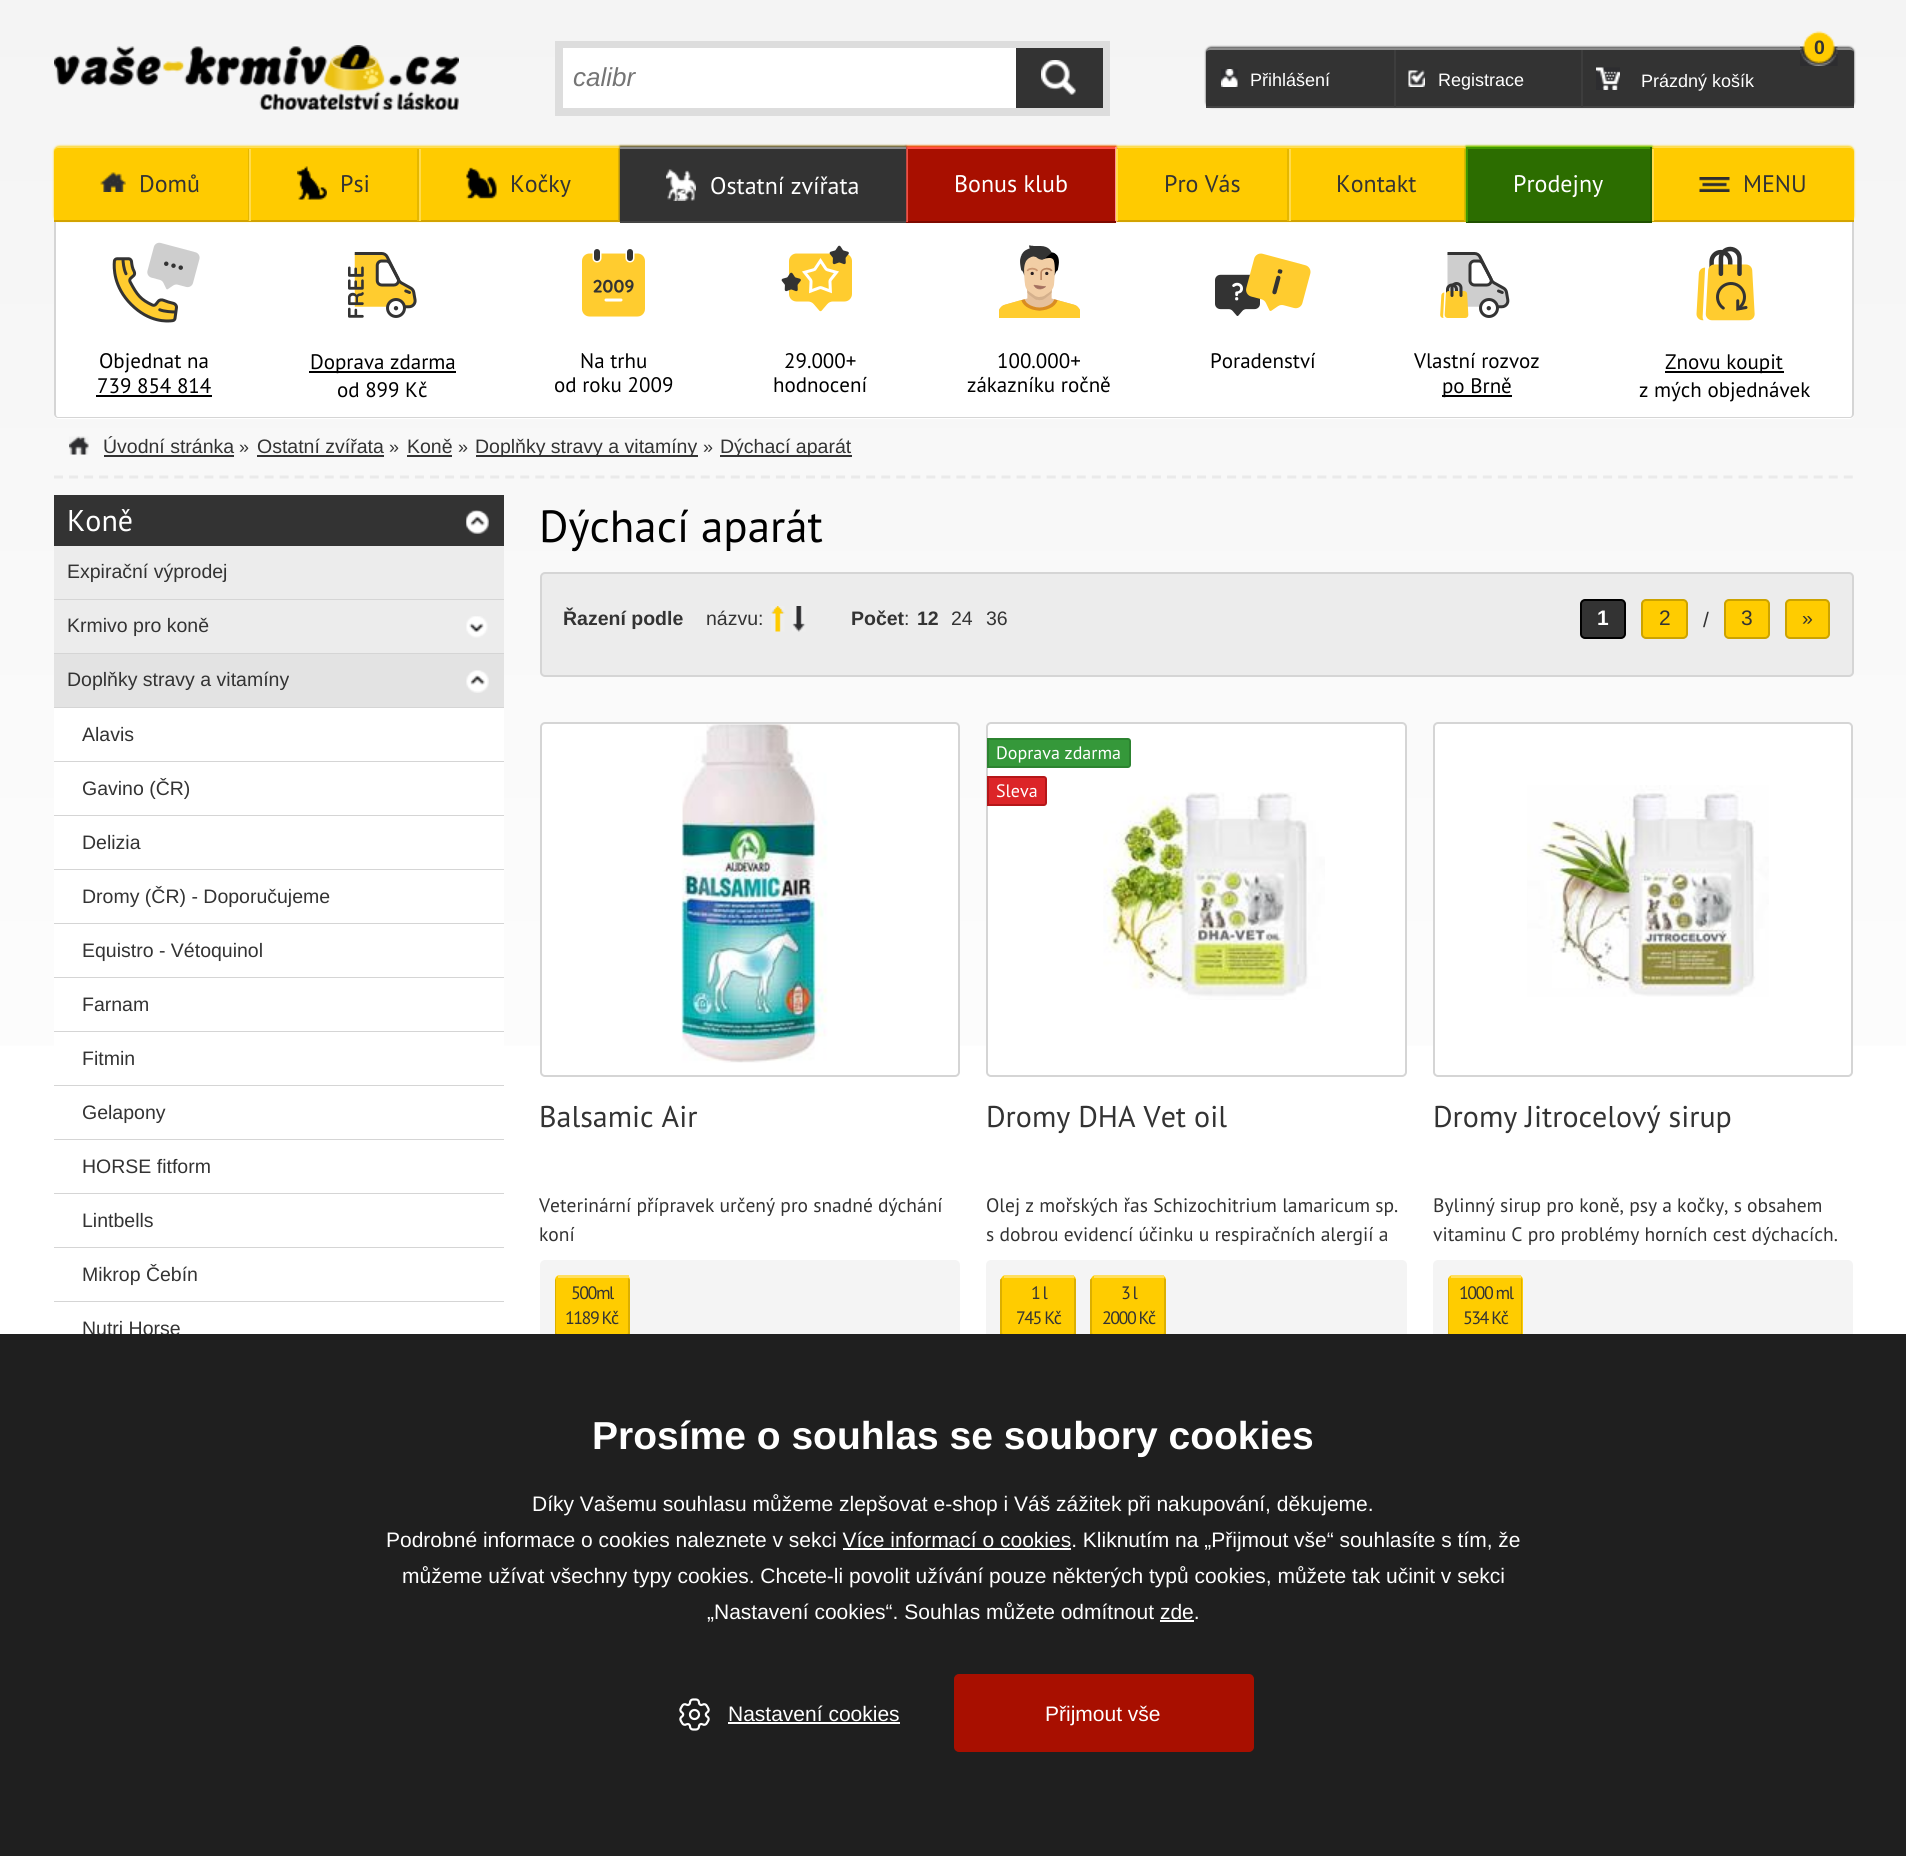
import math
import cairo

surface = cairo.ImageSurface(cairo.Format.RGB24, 1906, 1856)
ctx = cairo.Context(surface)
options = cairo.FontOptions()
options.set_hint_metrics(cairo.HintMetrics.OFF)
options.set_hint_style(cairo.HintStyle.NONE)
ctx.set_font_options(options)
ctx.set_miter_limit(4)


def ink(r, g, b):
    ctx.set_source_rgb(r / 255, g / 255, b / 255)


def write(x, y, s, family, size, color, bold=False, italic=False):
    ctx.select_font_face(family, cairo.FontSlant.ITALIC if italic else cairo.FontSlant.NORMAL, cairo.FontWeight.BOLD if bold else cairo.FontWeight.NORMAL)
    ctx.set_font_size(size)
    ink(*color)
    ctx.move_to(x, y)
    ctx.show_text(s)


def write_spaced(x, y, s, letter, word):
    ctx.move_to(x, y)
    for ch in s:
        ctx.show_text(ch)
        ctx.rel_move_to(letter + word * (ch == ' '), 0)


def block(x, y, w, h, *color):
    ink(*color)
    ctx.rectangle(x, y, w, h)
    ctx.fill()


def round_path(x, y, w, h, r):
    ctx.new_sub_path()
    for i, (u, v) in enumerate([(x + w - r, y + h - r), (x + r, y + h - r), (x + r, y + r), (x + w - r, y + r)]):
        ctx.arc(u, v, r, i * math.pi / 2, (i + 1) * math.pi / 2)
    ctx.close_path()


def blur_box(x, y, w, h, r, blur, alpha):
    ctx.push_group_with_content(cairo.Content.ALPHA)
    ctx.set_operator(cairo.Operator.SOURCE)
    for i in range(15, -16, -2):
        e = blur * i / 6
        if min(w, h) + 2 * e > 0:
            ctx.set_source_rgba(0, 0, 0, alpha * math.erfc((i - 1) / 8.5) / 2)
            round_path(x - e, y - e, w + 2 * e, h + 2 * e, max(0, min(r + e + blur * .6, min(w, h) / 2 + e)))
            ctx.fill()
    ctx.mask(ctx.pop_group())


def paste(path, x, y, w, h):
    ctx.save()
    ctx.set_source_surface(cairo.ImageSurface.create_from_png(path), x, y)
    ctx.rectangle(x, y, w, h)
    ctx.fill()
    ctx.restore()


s1 = dict(family="Liberation Sans", size=26, color=(117, 117, 117), italic=True)
s2 = dict(family="Liberation Sans", size=18, color=(255, 255, 255))
s3 = dict(family="Liberation Sans", size=19.5, color=(51, 51, 51), bold=True)
s4 = dict(family="PT Sans", size=24, color=(51, 51, 51))
s5 = dict(family="PT Sans", size=24, color=(255, 255, 255))
s6 = dict(family="PT Sans", size=21, color=(0, 0, 0))
s7 = dict(family="Liberation Sans", size=19.5, color=(51, 51, 51))
s8 = dict(family="Liberation Sans", size=18, color=(51, 51, 51))
s9 = dict(family="PT Sans", size=30, color=(255, 255, 255))
s10 = dict(family="PT Sans", size=45, color=(0, 0, 0))
s11 = dict(family="Liberation Sans", size=21, color=(255, 255, 255), bold=True)
s12 = dict(family="Liberation Sans", size=21, color=(51, 51, 51))
s13 = dict(family="PT Sans", size=30, color=(51, 51, 51))
s14 = dict(family="PT Sans", size=19.5, color=(51, 51, 51))
s15 = dict(family="PT Sans", size=18, color=(255, 255, 255))
s16 = dict(family="Liberation Sans", size=39, color=(255, 255, 255), bold=True)
s17 = dict(family="Liberation Sans", size=21, color=(255, 255, 255))

ink(255, 255, 255)
ctx.paint()
gradient = cairo.LinearGradient(953, 0, 953, 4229)
gradient.add_color_stop_rgba(0, 0.957, 0.957, 0.957, 1)
gradient.add_color_stop_rgba(0.32, 1, 1, 1, 1)
gradient.add_color_stop_rgba(1, 1, 1, 1, 1)
ctx.set_source(gradient)
ctx.rectangle(0, 0, 1906, 1046)
ctx.fill()
paste("pic1.png", 54, 45, 405, 65)
block(555, 41, 555, 75, 221, 221, 221)
block(563, 48, 453, 60, 255, 255, 255)
write(573, 86, "calibr", **s1)
block(1016, 48, 87, 60, 51, 51, 51)
paste("pic2.png", 1041, 60, 35, 35)
ink(68, 68, 68)
blur_box(1206, 47, 648, 60, 5, 1, 1)
ink(51, 51, 51)
ctx.new_path()
ctx.move_to(1211, 48)
ctx.line_to(1849, 48)
ctx.curve_to(1852, 48, 1854, 50, 1854, 53)
ctx.line_to(1854, 108)
ctx.line_to(1206, 108)
ctx.line_to(1206, 53)
ctx.curve_to(1206, 50, 1208, 48, 1211, 48)
ctx.close_path()
ctx.fill()
ink(139, 139, 139)
ctx.new_path()
ctx.move_to(1210, 48)
ctx.curve_to(1208, 48, 1206, 50, 1206, 52)
ctx.curve_to(1206, 51, 1208, 50, 1210, 50)
ctx.line_to(1850, 50)
ctx.curve_to(1852, 50, 1854, 51, 1854, 52)
ctx.curve_to(1854, 50, 1852, 48, 1850, 48)
ctx.close_path()
ctx.fill()
block(1206, 106, 648, 2, 68, 68, 68)
paste("pic3.png", 1221, 69, 17, 18)
write(1250, 86, "Přihlášení", **s2)
block(1394, 50, 2, 57, 61, 61, 61)
paste("pic4.png", 1408, 70, 17, 17)
write(1438, 86, "Registrace", **s2)
paste("pic5.png", 1800, 31, 38, 35)
write(1814, 54, "0", **s3)
block(1581, 50, 2, 57, 61, 61, 61)
paste("pic6.png", 1596, 67, 24, 23)
write(1641, 87, "Prázdný košík", **s2)
ctx.new_path()
ctx.move_to(54, 222)
ctx.line_to(1854, 222)
ctx.line_to(1854, 414)
ctx.curve_to(1854, 417, 1852, 419, 1849, 419)
ctx.line_to(59, 419)
ctx.curve_to(56, 419, 54, 417, 54, 414)
ctx.close_path()
ctx.fill()
ink(213, 213, 213)
ctx.set_fill_rule(cairo.FillRule.EVEN_ODD)
ctx.new_path()
ctx.move_to(54, 222)
ctx.line_to(1854, 222)
ctx.line_to(1854, 414)
ctx.curve_to(1854, 416, 1852, 418, 1850, 418)
ctx.line_to(58, 418)
ctx.curve_to(56, 418, 54, 416, 54, 414)
ctx.close_path()
ctx.move_to(56, 222)
ctx.line_to(1852, 222)
ctx.line_to(1852, 414)
ctx.curve_to(1852, 416, 1851, 417, 1850, 417)
ctx.line_to(58, 417)
ctx.curve_to(57, 417, 56, 416, 56, 414)
ctx.close_path()
ctx.fill()
ink(255, 212, 15)
blur_box(54, 146, 1800, 75, 5, 1, 1)
ink(255, 203, 0)
ctx.new_path()
ctx.move_to(59, 147)
ctx.line_to(1849, 147)
ctx.curve_to(1852, 147, 1854, 149, 1854, 152)
ctx.line_to(1854, 222)
ctx.line_to(54, 222)
ctx.line_to(54, 152)
ctx.curve_to(54, 149, 56, 147, 59, 147)
ctx.close_path()
ctx.fill()
ink(255, 222, 88)
ctx.set_fill_rule(cairo.FillRule.WINDING)
ctx.new_path()
ctx.move_to(58, 147)
ctx.curve_to(56, 147, 54, 149, 54, 152)
ctx.curve_to(54, 150, 56, 148, 58, 148)
ctx.line_to(1850, 148)
ctx.curve_to(1852, 148, 1854, 150, 1854, 152)
ctx.curve_to(1854, 149, 1852, 147, 1850, 147)
ctx.close_path()
ctx.fill()
block(54, 220, 1800, 2, 211, 163, 0)
block(248, 149, 1, 72, 229, 183, 0)
paste("pic7.png", 100, 172, 26, 20)
write(139, 192, "Domů", **s4)
block(417, 149, 2, 72, 229, 183, 0)
block(249, 149, 2, 72, 255, 219, 77)
paste("pic8.png", 297, 166, 30, 34)
write(340, 192, "Psi", **s4)
block(618, 149, 2, 72, 229, 183, 0)
block(419, 149, 2, 72, 255, 219, 77)
paste("pic9.png", 466, 167, 31, 32)
write(510, 192, "Kočky", **s4)
ink(227, 34, 3)
blur_box(906, 146, 210, 75, 0, 1, 1)
block(908, 149, 207, 72, 168, 15, 0)
block(906, 147, 210, 2, 255, 78, 67)
block(1115, 147, 2, 75, 255, 148, 145)
block(906, 221, 210, 2, 126, 9, 0)
block(906, 147, 2, 75, 255, 78, 67)
ink(68, 68, 68)
blur_box(620, 146, 286, 75, 0, 1, 1)
block(620, 149, 286, 72, 51, 51, 51)
block(620, 147, 286, 2, 139, 139, 139)
block(620, 221, 286, 2, 68, 68, 68)
paste("pic10.png", 666, 169, 30, 32)
write(710, 194, "Ostatní zvířata", **s5)
write(954, 192, "Bonus klub", **s5)
block(1287, 149, 2, 72, 229, 183, 0)
block(1116, 149, 2, 72, 255, 219, 77)
write(1164, 192, "Pro Vás", **s4)
block(1464, 149, 2, 72, 229, 183, 0)
block(1289, 149, 2, 72, 255, 219, 77)
write(1336, 192, "Kontakt", **s4)
ink(83, 193, 0)
blur_box(1466, 146, 186, 75, 0, 1, 1)
block(1468, 149, 182, 72, 44, 109, 0)
block(1466, 147, 186, 2, 64, 152, 0)
block(1650, 147, 2, 75, 37, 95, 0)
block(1466, 221, 186, 2, 31, 81, 0)
block(1466, 147, 2, 75, 64, 152, 0)
write(1513, 192, "Prodejny", **s5)
block(1652, 149, 2, 72, 255, 219, 77)
paste("pic11.png", 1699, 177, 31, 15)
write(1743, 192, "MENU", **s4)
paste("pic12.png", 112, 242, 88, 81)
write(99, 368, "Objednat na", **s6)
write(97, 393, "739 854 814", **s6)
block(96, 395, 116, 2, 0, 0, 0)
paste("pic13.png", 348, 252, 69, 66)
block(309, 371, 147, 2, 0, 0, 0)
write(310, 369, "Doprava zdarma", **s6)
write(337, 397, "od 899 Kč", **s6)
paste("pic14.png", 582, 249, 63, 68)
write(580, 368, "Na trhu", **s6)
write(554, 392, "od roku 2009", **s6)
paste("pic15.png", 781, 245, 71, 67)
write(784, 368, "29.000+", **s6)
write(773, 392, "hodnocení", **s6)
paste("pic16.png", 999, 245, 81, 73)
write(997, 368, "100.000+", **s6)
write(967, 392, "zákazníku ročně", **s6)
paste("pic17.png", 1215, 253, 96, 63)
write(1210, 368, "Poradenství", **s6)
paste("pic18.png", 1440, 252, 70, 66)
write(1414, 368, "Vlastní rozvoz", **s6)
block(1442, 395, 70, 2, 0, 0, 0)
write(1442, 393, "po Brně", **s6)
paste("pic19.png", 1696, 246, 59, 75)
block(1665, 371, 119, 2, 0, 0, 0)
write(1665, 369, "Znovu koupit", **s6)
write(1639, 397, "z mých objednávek", **s6)
ctx.new_path()
ctx.move_to(54, 477)
ctx.line_to(1854, 477)
ink(234, 234, 234)
ctx.set_line_width(3)
ctx.set_dash([9, 6.04])
ctx.stroke()
paste("pic20.png", 69, 436, 20, 19)
write(103, 453, "Úvodní stránka", **s7)
block(104, 455, 130, 2, 51, 51, 51)
write(239, 453, "»", **s8)
write(257, 453, "Ostatní zvířata", **s7)
block(257, 455, 127, 2, 51, 51, 51)
write(389, 453, "»", **s8)
write(407, 453, "Koně", **s7)
block(407, 455, 45, 2, 51, 51, 51)
write(458, 453, "»", **s8)
block(476, 455, 222, 2, 51, 51, 51)
write(475, 453, "Doplňky stravy a vitamíny", **s7)
write(703, 453, "»", **s8)
block(720, 455, 132, 2, 51, 51, 51)
write(720, 453, "Dýchací aparát", **s7)
block(54, 495, 450, 51, 51, 51, 51)
write(67, 531, "Koně", **s9)
paste("pic22.png", 466, 510, 23, 24)
paste("pic21.png", 466, 510, 23, 24)
block(54, 546, 450, 53, 236, 236, 236)
block(54, 599, 450, 1, 213, 213, 213)
write(67, 578, "Expirační výprodej", **s7)
block(54, 600, 450, 53, 236, 236, 236)
block(54, 653, 450, 1, 213, 213, 213)
write(67, 632, "Krmivo pro koně", **s7)
paste("pic23.png", 466, 616, 22, 22)
block(54, 654, 450, 53, 227, 227, 227)
block(54, 707, 450, 1, 213, 213, 213)
write(67, 686, "Doplňky stravy a vitamíny", **s7)
paste("pic24.png", 466, 670, 23, 23)
block(54, 708, 450, 53, 255, 255, 255)
block(54, 761, 450, 1, 213, 213, 213)
write(82, 741, "Alavis", **s7)
block(54, 762, 450, 53, 255, 255, 255)
block(54, 815, 450, 1, 213, 213, 213)
write(82, 795, "Gavino (ČR)", **s7)
block(54, 816, 450, 53, 255, 255, 255)
block(54, 869, 450, 1, 213, 213, 213)
write(82, 849, "Delizia", **s7)
block(54, 870, 450, 53, 255, 255, 255)
block(54, 923, 450, 1, 213, 213, 213)
write(82, 903, "Dromy (ČR) - Doporučujeme", **s7)
block(54, 924, 450, 53, 255, 255, 255)
block(54, 977, 450, 1, 213, 213, 213)
write(82, 957, "Equistro - Vétoquinol", **s7)
block(54, 978, 450, 53, 255, 255, 255)
block(54, 1031, 450, 1, 213, 213, 213)
write(82, 1011, "Farnam", **s7)
block(54, 1032, 450, 14, 255, 255, 255)
block(54, 1085, 450, 1, 213, 213, 213)
write(82, 1065, "Fitmin", **s7)
block(54, 1139, 450, 1, 213, 213, 213)
write(82, 1119, "Gelapony", **s7)
block(54, 1193, 450, 1, 213, 213, 213)
write(82, 1173, "HORSE fitform", **s7)
block(54, 1247, 450, 1, 213, 213, 213)
write(82, 1227, "Lintbells", **s7)
block(54, 1301, 450, 1, 213, 213, 213)
write(82, 1281, "Mikrop Čebín", **s7)
write(82, 1335, "Nutri Horse", **s7)
write(539, 542, "Dýchací aparát", **s10)
ink(236, 236, 236)
round_path(541, 573, 1312, 103, 4)
ctx.fill_preserve()
ink(213, 213, 213)
ctx.set_line_width(2)
ctx.set_dash([])
ctx.stroke()
write(563, 625, "Řazení podle", **s3)
write(706, 625, "názvu:", **s7)
paste("pic25.png", 771, 606, 14, 26)
paste("pic26.png", 792, 606, 14, 26)
write(851, 625, "Počet", **s3)
write(904, 625, ":", **s7)
write(917, 625, "12", **s3)
write(951, 625, "24", **s7)
write(986, 625, "36", **s7)
round_path(1581, 600, 44, 38, 4)
ctx.fill_preserve()
ink(0, 0, 0)
ctx.stroke()
write(1597, 625, "1", **s11)
ink(255, 204, 0)
round_path(1642, 600, 45, 38, 4)
ctx.fill_preserve()
ink(204, 163, 0)
ctx.stroke()
write(1659, 625, "2", **s12)
write(1703, 627, "/", **s12)
ink(255, 204, 0)
round_path(1725, 600, 44, 38, 4)
ctx.fill_preserve()
ink(204, 163, 0)
ctx.stroke()
write(1741, 625, "3", **s12)
ink(255, 204, 0)
round_path(1786, 600, 43, 38, 4)
ctx.fill_preserve()
ink(204, 163, 0)
ctx.stroke()
write(1802, 625, "»", **s7)
ink(255, 255, 255)
round_path(541, 723, 418, 353, 4)
ctx.fill_preserve()
ink(213, 213, 213)
ctx.stroke()
paste("pic27.png", 681, 724, 147, 339)
write(539, 1127, "Balsamic Air", **s13)
write(539, 1212, "Veterinární přípravek určený pro snadné dýchání", **s14)
write(539, 1241, "koní", **s14)
ink(244, 244, 244)
round_path(540, 1260, 420, 171, 5)
ctx.fill()
ink(255, 204, 0)
round_path(555, 1275, 75, 63, 5)
ctx.fill()
ink(219, 175, 0)
ctx.new_path()
ctx.move_to(556, 1279)
ctx.line_to(555, 1280)
ctx.line_to(555, 1334)
ctx.curve_to(555, 1336, 557, 1338, 560, 1338)
ctx.line_to(626, 1338)
ctx.curve_to(628, 1338, 630, 1336, 630, 1334)
ctx.line_to(630, 1280)
ctx.curve_to(630, 1279, 629, 1279, 628, 1278)
ctx.line_to(628, 1332)
ctx.curve_to(628, 1334, 627, 1335, 626, 1335)
ctx.line_to(560, 1335)
ctx.curve_to(558, 1335, 556, 1334, 556, 1332)
ctx.close_path()
ctx.fill()
block(558, 1275, 71, 3, 255, 223, 94)
ctx.set_font_size(18)
ink(51, 51, 51)
write_spaced(571, 1299, "500ml", -1.5, 0)
write_spaced(565, 1324, "1189 Kč", -1.5, 0)
ink(255, 255, 255)
round_path(987, 723, 419, 353, 4)
ctx.fill_preserve()
ink(213, 213, 213)
ctx.stroke()
ink(53, 152, 58)
ctx.new_path()
ctx.move_to(988, 739)
ctx.line_to(1128, 739)
ctx.curve_to(1129, 739, 1130, 740, 1130, 741)
ctx.line_to(1130, 765)
ctx.curve_to(1130, 766, 1129, 767, 1128, 767)
ctx.line_to(988, 767)
ctx.close_path()
ctx.fill_preserve()
ink(44, 131, 48)
ctx.stroke()
write(996, 759, "Doprava zdarma", **s15)
ink(220, 37, 40)
ctx.new_path()
ctx.move_to(988, 777)
ctx.line_to(1044, 777)
ctx.curve_to(1045, 777, 1046, 778, 1046, 779)
ctx.line_to(1046, 803)
ctx.curve_to(1046, 804, 1045, 805, 1044, 805)
ctx.line_to(988, 805)
ctx.close_path()
ctx.fill_preserve()
ink(181, 23, 25)
ctx.stroke()
write(996, 797, "Sleva", **s15)
paste("pic28.png", 1103, 792, 222, 208)
write(986, 1127, "Dromy DHA Vet oil", **s13)
write(986, 1212, "Olej z mořských řas Schizochitrium lamaricum sp.", **s14)
write(986, 1241, "s dobrou evidencí účinku u respiračních alergií a", **s14)
ink(244, 244, 244)
round_path(986, 1260, 421, 171, 5)
ctx.fill()
ink(255, 204, 0)
round_path(1001, 1275, 75, 63, 5)
ctx.fill()
ink(219, 175, 0)
ctx.new_path()
ctx.move_to(1002, 1278)
ctx.curve_to(1001, 1279, 1000, 1279, 1000, 1280)
ctx.line_to(1000, 1334)
ctx.curve_to(1000, 1336, 1003, 1338, 1005, 1338)
ctx.line_to(1071, 1338)
ctx.curve_to(1073, 1338, 1076, 1336, 1076, 1334)
ctx.line_to(1076, 1280)
ctx.curve_to(1076, 1279, 1075, 1279, 1074, 1278)
ctx.line_to(1074, 1332)
ctx.curve_to(1074, 1334, 1073, 1335, 1071, 1335)
ctx.line_to(1005, 1335)
ctx.curve_to(1003, 1335, 1002, 1334, 1002, 1332)
ctx.close_path()
ctx.fill()
block(1004, 1275, 70, 3, 255, 223, 94)
ctx.set_font_size(18)
ink(51, 51, 51)
write_spaced(1031, 1299, "1 l", -1.5, 0)
write_spaced(1016, 1324, "745 Kč", -1.5, 0)
ink(255, 204, 0)
round_path(1091, 1275, 75, 63, 5)
ctx.fill()
ink(219, 175, 0)
ctx.new_path()
ctx.move_to(1092, 1278)
ctx.curve_to(1091, 1279, 1090, 1279, 1090, 1280)
ctx.line_to(1090, 1334)
ctx.curve_to(1090, 1336, 1093, 1338, 1095, 1338)
ctx.line_to(1161, 1338)
ctx.curve_to(1163, 1338, 1166, 1336, 1166, 1334)
ctx.line_to(1166, 1280)
ctx.curve_to(1166, 1279, 1165, 1279, 1164, 1278)
ctx.line_to(1164, 1332)
ctx.curve_to(1164, 1334, 1163, 1335, 1161, 1335)
ctx.line_to(1095, 1335)
ctx.curve_to(1093, 1335, 1092, 1334, 1092, 1332)
ctx.close_path()
ctx.fill()
block(1094, 1275, 70, 3, 255, 223, 94)
ink(51, 51, 51)
write_spaced(1121, 1299, "3 l", -1.5, 0)
write_spaced(1102, 1324, "2000 Kč", -1.5, 0)
ink(255, 255, 255)
round_path(1434, 723, 418, 353, 4)
ctx.fill_preserve()
ink(213, 213, 213)
ctx.stroke()
paste("pic29.png", 1527, 785, 242, 212)
write(1433, 1127, "Dromy Jitrocelový sirup", **s13)
write(1433, 1212, "Bylinný sirup pro koně, psy a kočky, s obsahem", **s14)
write(1433, 1241, "vitaminu C pro problémy horních cest dýchacích.", **s14)
ink(244, 244, 244)
round_path(1433, 1260, 420, 171, 5)
ctx.fill()
ink(255, 204, 0)
round_path(1448, 1275, 75, 63, 5)
ctx.fill()
ink(219, 175, 0)
ctx.new_path()
ctx.move_to(1449, 1278)
ctx.curve_to(1448, 1279, 1448, 1279, 1448, 1280)
ctx.line_to(1448, 1334)
ctx.curve_to(1448, 1336, 1450, 1338, 1452, 1338)
ctx.line_to(1518, 1338)
ctx.curve_to(1520, 1338, 1522, 1336, 1522, 1334)
ctx.line_to(1522, 1280)
ctx.curve_to(1522, 1279, 1522, 1279, 1521, 1278)
ctx.line_to(1521, 1332)
ctx.curve_to(1521, 1334, 1520, 1335, 1518, 1335)
ctx.line_to(1452, 1335)
ctx.curve_to(1450, 1335, 1449, 1334, 1449, 1332)
ctx.close_path()
ctx.fill()
block(1451, 1275, 70, 3, 255, 223, 94)
ctx.set_font_size(18)
ink(51, 51, 51)
write_spaced(1459, 1299, "1000 ml", -1.5, 0)
write_spaced(1463, 1324, "534 Kč", -1.5, 0)
block(0, 1334, 1906, 522, 31, 31, 31)
write(592, 1449, "Prosíme o souhlas se soubory cookies", **s16)
write(532, 1511, "Díky Vašemu souhlasu můžeme zlepšovat e-shop i Váš zážitek při nakupování, děkujeme.", **s17)
write(386, 1547, "Podrobné informace o cookies naleznete v sekci Více informací o cookies. Kliknutím na „Přijmout vše“ souhlasíte s tím, že", **s17)
block(843, 1548, 228, 2, 255, 255, 255)
write(402, 1583, "můžeme užívat všechny typy cookies. Chcete-li povolit užívání pouze některých typů cookies, můžete tak učinit v sekci", **s17)
write(707, 1619, "„Nastavení cookies“. Souhlas můžete odmítnout zde.", **s17)
block(1160, 1620, 34, 2, 255, 255, 255)
paste("pic30.png", 679, 1698, 31, 33)
write(728, 1721, "Nastavení cookies", **s17)
block(728, 1722, 172, 2, 255, 255, 255)
ink(168, 15, 0)
round_path(955, 1675, 298, 76, 4)
ctx.fill_preserve()
ctx.stroke()
write(1045, 1721, "Přijmout vše", **s17)
surface.write_to_png("screenshot.png")
